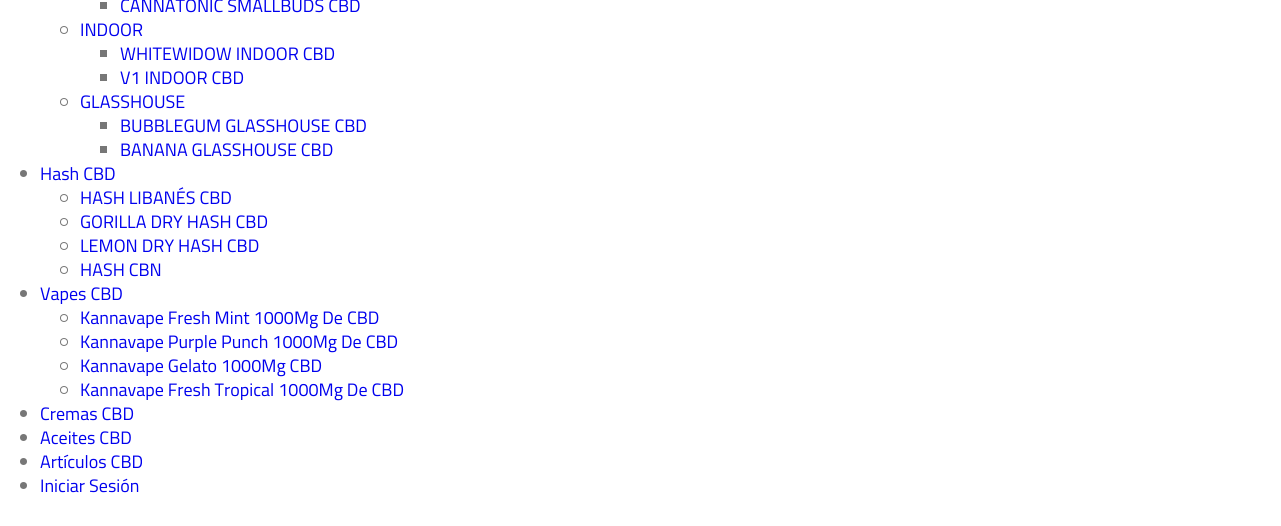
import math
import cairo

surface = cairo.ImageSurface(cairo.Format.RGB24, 1281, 526)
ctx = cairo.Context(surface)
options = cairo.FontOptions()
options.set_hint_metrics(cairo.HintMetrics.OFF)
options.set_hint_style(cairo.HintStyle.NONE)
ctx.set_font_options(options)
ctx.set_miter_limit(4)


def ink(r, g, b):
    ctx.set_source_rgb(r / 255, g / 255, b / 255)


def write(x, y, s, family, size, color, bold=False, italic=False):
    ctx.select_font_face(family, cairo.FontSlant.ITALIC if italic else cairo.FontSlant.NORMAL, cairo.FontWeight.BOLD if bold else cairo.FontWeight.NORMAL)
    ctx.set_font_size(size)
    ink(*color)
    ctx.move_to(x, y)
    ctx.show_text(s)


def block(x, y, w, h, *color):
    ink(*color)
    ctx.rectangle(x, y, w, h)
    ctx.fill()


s1 = dict(family="Titillium Web", size=18, color=(0, 0, 238))

ink(255, 255, 255)
ctx.paint()
block(100, 2, 7, 7, 119, 119, 119)
write(120, 12, "CANNATONIC SMALLBUDS CBD", **s1)
ctx.new_path()
ctx.arc(64, 30, 3.5, 0, 2 * math.pi)
ink(119, 119, 119)
ctx.set_line_width(1)
ctx.stroke()
write(80, 36, "INDOOR", **s1)
block(100, 50, 7, 7, 119, 119, 119)
write(120, 60, "WHITEWIDOW INDOOR CBD", **s1)
block(100, 74, 7, 7, 119, 119, 119)
write(120, 84, "V1 INDOOR CBD", **s1)
ctx.new_path()
ctx.arc(64, 102, 3.5, 0, 2 * math.pi)
ink(119, 119, 119)
ctx.stroke()
write(80, 108, "GLASSHOUSE", **s1)
block(100, 122, 7, 7, 119, 119, 119)
write(120, 132, "BUBBLEGUM GLASSHOUSE CBD", **s1)
block(100, 146, 7, 7, 119, 119, 119)
write(120, 156, "BANANA GLASSHOUSE CBD", **s1)
ink(119, 119, 119)
ctx.new_path()
ctx.arc(23.5, 173.5, 3.5, 0, 2 * math.pi)
ctx.fill()
write(40, 180, "Hash CBD", **s1)
ctx.new_path()
ctx.arc(64, 198, 3.5, 0, 2 * math.pi)
ink(119, 119, 119)
ctx.stroke()
write(80, 204, "HASH LIBANÉS CBD", **s1)
ctx.new_path()
ctx.arc(64, 222, 3.5, 0, 2 * math.pi)
ink(119, 119, 119)
ctx.stroke()
write(80, 228, "GORILLA DRY HASH CBD", **s1)
ctx.new_path()
ctx.arc(64, 246, 3.5, 0, 2 * math.pi)
ink(119, 119, 119)
ctx.stroke()
write(80, 252, "LEMON DRY HASH CBD", **s1)
ctx.new_path()
ctx.arc(64, 270, 3.5, 0, 2 * math.pi)
ink(119, 119, 119)
ctx.stroke()
write(80, 276, "HASH CBN", **s1)
ink(119, 119, 119)
ctx.new_path()
ctx.arc(23.5, 293.5, 3.5, 0, 2 * math.pi)
ctx.fill()
write(40, 300, "Vapes CBD", **s1)
ctx.new_path()
ctx.arc(64, 318, 3.5, 0, 2 * math.pi)
ink(119, 119, 119)
ctx.stroke()
write(80, 324, "Kannavape Fresh Mint 1000Mg De CBD", **s1)
ctx.new_path()
ctx.arc(64, 342, 3.5, 0, 2 * math.pi)
ink(119, 119, 119)
ctx.stroke()
write(80, 348, "Kannavape Purple Punch 1000Mg De CBD", **s1)
ctx.new_path()
ctx.arc(64, 366, 3.5, 0, 2 * math.pi)
ink(119, 119, 119)
ctx.stroke()
write(80, 372, "Kannavape Gelato 1000Mg CBD", **s1)
ctx.new_path()
ctx.arc(64, 390, 3.5, 0, 2 * math.pi)
ink(119, 119, 119)
ctx.stroke()
write(80, 396, "Kannavape Fresh Tropical 1000Mg De CBD", **s1)
ink(119, 119, 119)
ctx.new_path()
ctx.arc(23.5, 413.5, 3.5, 0, 2 * math.pi)
ctx.fill()
write(40, 420, "Cremas CBD", **s1)
ink(119, 119, 119)
ctx.new_path()
ctx.arc(23.5, 437.5, 3.5, 0, 2 * math.pi)
ctx.fill()
write(40, 444, "Aceites CBD", **s1)
ink(119, 119, 119)
ctx.new_path()
ctx.arc(23.5, 461.5, 3.5, 0, 2 * math.pi)
ctx.fill()
write(40, 468, "Artículos CBD", **s1)
ink(119, 119, 119)
ctx.new_path()
ctx.arc(23.5, 485.5, 3.5, 0, 2 * math.pi)
ctx.fill()
write(40, 492, "Iniciar Sesión", **s1)
surface.write_to_png("screenshot.png")
